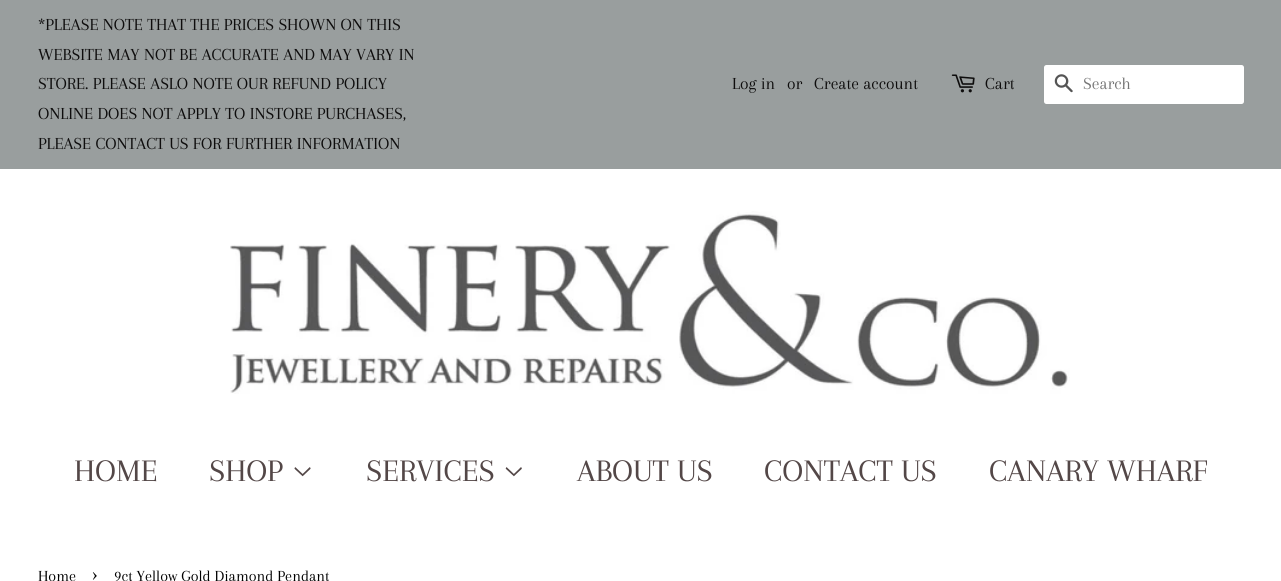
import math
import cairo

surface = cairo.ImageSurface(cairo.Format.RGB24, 1281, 581)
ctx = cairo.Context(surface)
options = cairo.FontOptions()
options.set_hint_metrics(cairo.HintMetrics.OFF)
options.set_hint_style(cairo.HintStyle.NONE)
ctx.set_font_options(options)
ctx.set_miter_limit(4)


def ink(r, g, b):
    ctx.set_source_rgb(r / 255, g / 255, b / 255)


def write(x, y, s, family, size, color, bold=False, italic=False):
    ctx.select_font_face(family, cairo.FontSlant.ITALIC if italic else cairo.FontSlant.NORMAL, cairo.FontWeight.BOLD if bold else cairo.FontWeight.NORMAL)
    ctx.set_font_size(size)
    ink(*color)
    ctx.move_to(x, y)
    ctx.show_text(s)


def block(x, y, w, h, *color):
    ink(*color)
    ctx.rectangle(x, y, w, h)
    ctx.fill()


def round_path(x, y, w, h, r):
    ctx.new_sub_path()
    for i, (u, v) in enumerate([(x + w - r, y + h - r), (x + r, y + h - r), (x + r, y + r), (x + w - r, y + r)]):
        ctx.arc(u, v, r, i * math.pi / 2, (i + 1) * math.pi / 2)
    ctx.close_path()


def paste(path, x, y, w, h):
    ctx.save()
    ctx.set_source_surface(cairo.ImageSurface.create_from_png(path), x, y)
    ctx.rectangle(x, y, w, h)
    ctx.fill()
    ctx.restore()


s1 = dict(family="Arapey", size=17.5, color=(14, 13, 13))
s2 = dict(family="Arapey", size=17.5, color=(117, 117, 117))
s3 = dict(family="Arapey", size=32.5, color=(83, 71, 71))
s4 = dict(family="Arapey", size=16, color=(0, 0, 0))
s5 = dict(family="Arapey", size=22, color=(0, 0, 0))

ink(255, 255, 255)
ctx.paint()
block(0, 0, 1281, 169, 153, 158, 158)
write(38, 30, "*PLEASE NOTE THAT THE PRICES SHOWN ON THIS", **s1)
write(38, 60, "WEBSITE MAY NOT BE ACCURATE AND MAY VARY IN", **s1)
write(38, 89, "STORE. PLEASE ASLO NOTE OUR REFUND POLICY", **s1)
write(38, 119, "ONLINE DOES NOT APPLY TO INSTORE PURCHASES,", **s1)
write(38, 149, "PLEASE CONTACT US FOR FURTHER INFORMATION", **s1)
write(732, 89, "Log in", **s1)
write(787, 89, "or", **s1)
write(814, 89, "Create account", **s1)
paste("pic1.png", 951, 74, 24, 19)
write(985, 89, "Cart", **s1)
ink(255, 255, 255)
round_path(1044, 65, 200, 39, 2.5)
ctx.fill()
paste("pic2.png", 1054, 74, 19, 19)
write(1083, 89, "Search", **s2)
paste("pic3.png", 230, 211, 840, 183)
write(74, 481, "HOME", **s3)
write(209, 481, "SHOP", **s3)
paste("pic4.png", 294, 467, 17, 10)
write(366, 481, "SERVICES", **s3)
paste("pic5.png", 505, 467, 17, 10)
write(577, 481, "ABOUT US", **s3)
write(764, 481, "CONTACT US", **s3)
write(989, 481, "CANARY WHARF", **s3)
write(38, 581, "Home", **s4)
write(92, 581, "›", **s5)
write(114, 581, "9ct Yellow Gold Diamond Pendant", **s4)
surface.write_to_png("screenshot.png")
